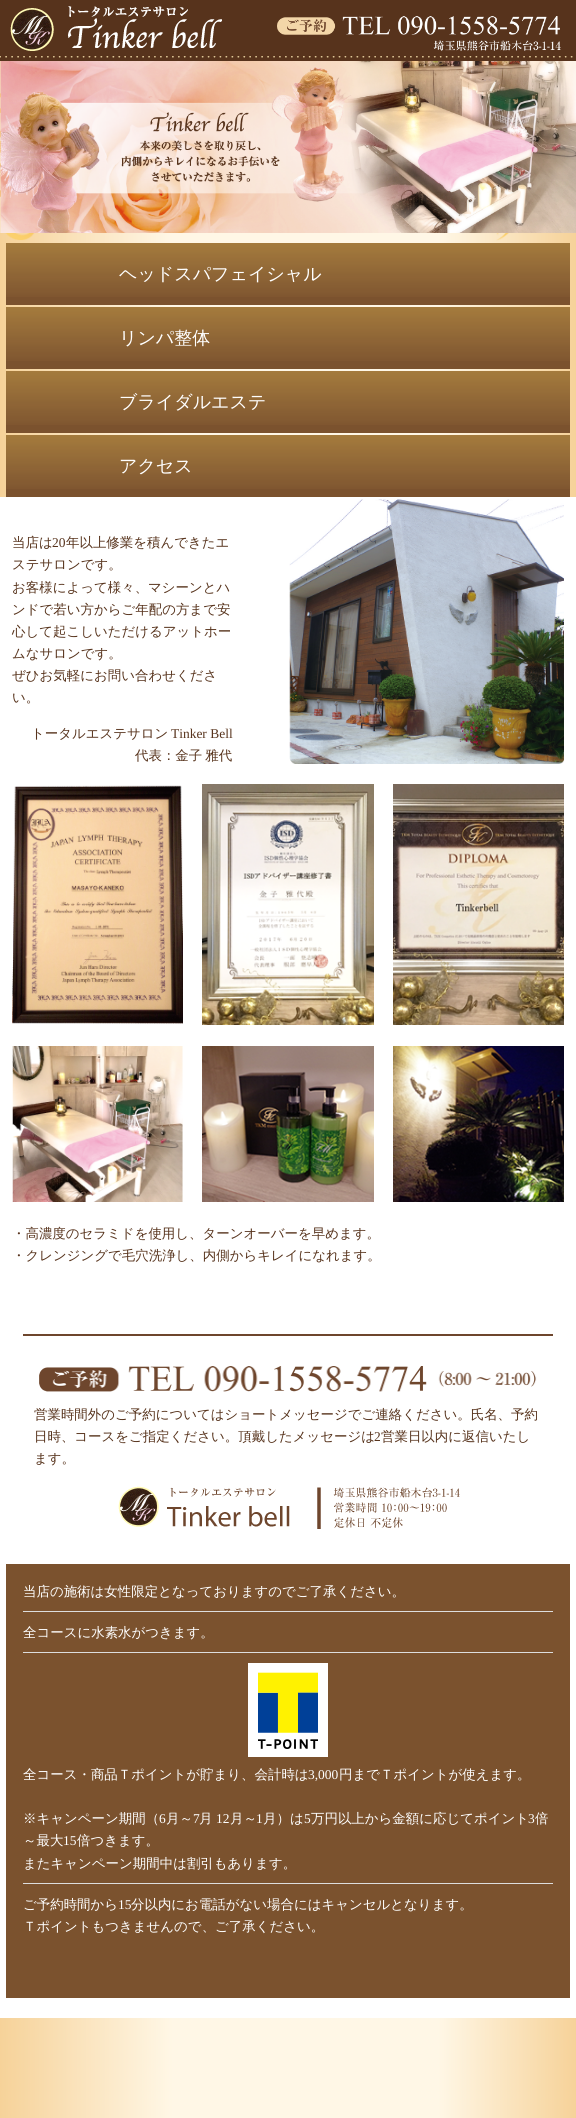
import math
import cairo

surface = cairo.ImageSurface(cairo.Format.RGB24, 576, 2118)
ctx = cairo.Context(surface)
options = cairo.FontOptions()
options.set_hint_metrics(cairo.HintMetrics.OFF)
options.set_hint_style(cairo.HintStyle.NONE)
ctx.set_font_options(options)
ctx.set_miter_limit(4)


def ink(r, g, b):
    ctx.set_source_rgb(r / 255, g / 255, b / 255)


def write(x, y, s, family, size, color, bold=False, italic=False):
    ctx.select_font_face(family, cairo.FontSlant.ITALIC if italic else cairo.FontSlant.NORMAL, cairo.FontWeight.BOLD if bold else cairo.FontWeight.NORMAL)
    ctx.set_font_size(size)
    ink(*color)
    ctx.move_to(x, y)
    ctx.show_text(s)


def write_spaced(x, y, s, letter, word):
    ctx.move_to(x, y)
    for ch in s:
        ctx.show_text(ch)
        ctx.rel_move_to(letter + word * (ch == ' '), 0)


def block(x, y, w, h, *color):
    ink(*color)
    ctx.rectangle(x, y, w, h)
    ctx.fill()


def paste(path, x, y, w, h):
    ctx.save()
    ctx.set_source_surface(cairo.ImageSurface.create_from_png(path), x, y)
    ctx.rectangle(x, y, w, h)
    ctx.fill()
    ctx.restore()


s1 = dict(family="WenQuanYi Zen Hei Medium", size=18, color=(255, 255, 255))
s2 = dict(family="WenQuanYi Zen Hei Medium", size=13.45, color=(87, 51, 28))
s3 = dict(family="Liberation Serif", size=13.45, color=(87, 51, 28))
s4 = dict(family="WenQuanYi Zen Hei Medium", size=13.45, color=(255, 255, 255))
s5 = dict(family="Liberation Serif", size=13.45, color=(255, 255, 255))

ink(255, 255, 255)
ctx.paint()
gradient = cairo.LinearGradient(0, 1059, 576, 1059)
gradient.add_color_stop_rgba(0, 0.965, 0.824, 0.6, 1)
gradient.add_color_stop_rgba(0.3, 1, 0.969, 0.902, 1)
gradient.add_color_stop_rgba(0.76, 1, 0.969, 0.902, 1)
gradient.add_color_stop_rgba(1, 0.965, 0.824, 0.6, 1)
ctx.set_source(gradient)
ctx.rectangle(0, 233, 576, 1885)
ctx.fill()
paste("pic1.png", 5, 233, 504, 8)
block(0, 0, 576, 61, 87, 51, 28)
paste("pic2.png", 0, 56, 573, 2)
paste("pic3.png", 10, 8, 44, 43)
paste("pic4.png", 68, 6, 120, 11)
paste("pic5.png", 68, 18, 154, 30)
paste("pic6.png", 277, 16, 284, 35)
paste("pic7.png", 0, 61, 576, 172)
block(6, 297, 564, 8, 123, 82, 46)
paste("pic8.png", 6, 243, 564, 54)
write(119, 280, "ヘッドスパフェイシャル", **s1)
block(6, 361, 564, 8, 123, 82, 46)
paste("pic8.png", 6, 307, 564, 54)
write(119, 344, "リンパ整体", **s1)
block(6, 425, 564, 8, 123, 82, 46)
paste("pic8.png", 6, 371, 564, 54)
write(119, 408, "ブライダルエステ", **s1)
block(6, 489, 564, 8, 123, 82, 46)
paste("pic8.png", 6, 435, 564, 54)
write(119, 472, "アクセス", **s1)
block(0, 497, 576, 1521, 255, 255, 255)
write(12, 547, "当店は", **s2)
write(52, 547, "20", **s3)
write(66, 547, "年以上修業を積んできたエ", **s2)
write(12, 569, "ステサロンです。", **s2)
write(12, 592, "お客様によって様々、マシーンとハ", **s2)
write(12, 614, "ンドで若い方からご年配の方まで安", **s2)
write(12, 636, "心して起こしいただけるアットホー", **s2)
write(12, 658, "ムなサロンです。", **s2)
write(12, 680, "ぜひお気軽にお問い合わせくださ", **s2)
write(12, 702, "い。", **s2)
write(31, 738, "トータルエステサロン", **s2)
write(171, 738, "Tinker Bell", **s3)
ctx.select_font_face("WenQuanYi Zen Hei Medium")
write_spaced(135, 760, "代表：金子 雅代", 0, -1)
paste("pic9.png", 289, 499, 275, 265)
paste("pic10.png", 12, 785, 171, 239)
paste("pic11.png", 202, 784, 172, 241)
paste("pic12.png", 393, 784, 171, 241)
paste("pic13.png", 12, 1046, 171, 156)
paste("pic14.png", 202, 1046, 172, 156)
paste("pic15.png", 393, 1046, 171, 156)
write(12, 1238, "・高濃度のセラミドを使用し、ターンオーバーを早めます。", **s2)
write(12, 1260, "・クレンジングで毛穴洗浄し、内側からキレイになれます。", **s2)
block(23, 1334, 530, 2, 110, 70, 45)
paste("pic16.png", 39, 1366, 498, 26)
write(34, 1419, "営業時間外のご予約についてはショートメッセージでご連絡ください。氏名、予約", **s2)
write(34, 1441, "日時、コースをご指定ください。頂戴したメッセージは", **s2)
write(374, 1441, "2", **s3)
write(381, 1441, "営業日以内に返信いたし", **s2)
write(34, 1463, "ます。", **s2)
paste("pic17.png", 118, 1486, 342, 43)
block(6, 1564, 564, 434, 123, 82, 46)
write(23, 1596, "当店の施術は女性限定となっておりますのでご了承ください。", **s4)
block(23, 1611, 530, 1, 221, 221, 221)
write(23, 1637, "全コースに水素水がつきます。", **s4)
block(23, 1652, 530, 1, 221, 221, 221)
paste("pic18.png", 248, 1663, 80, 94)
write(23, 1779, "全コース・商品Ｔポイントが貯まり、会計時は", **s4)
write(308, 1779, "3,000", **s5)
write(339, 1779, "円までＴポイントが使えます。", **s4)
write(23, 1823, "※キャンペーン期間（", **s4)
write(159, 1823, "6", **s5)
write(166, 1823, "月～", **s4)
write(193, 1823, "7", **s5)
write(199, 1823, "月", **s4)
write(216, 1823, "12", **s5)
write(230, 1823, "月～", **s4)
write(256, 1823, "1", **s5)
write(263, 1823, "月）は", **s4)
write(304, 1823, "5", **s5)
write(311, 1823, "万円以上から金額に応じてポイント", **s4)
write(528, 1823, "3", **s5)
write(535, 1823, "倍", **s4)
write(23, 1845, "～最大", **s4)
write(63, 1845, "15", **s5)
write(77, 1845, "倍つきます。", **s4)
write(23, 1868, "またキャンペーン期間中は割引もあります。", **s4)
block(23, 1883, 530, 1, 221, 221, 221)
write(23, 1909, "ご予約時間から", **s4)
write(118, 1909, "15", **s5)
write(131, 1909, "分以内にお電話がない場合にはキャンセルとなります。", **s4)
write(23, 1931, "Ｔポイントもつきませんので、ご了承ください。", **s4)
surface.write_to_png("screenshot.png")
